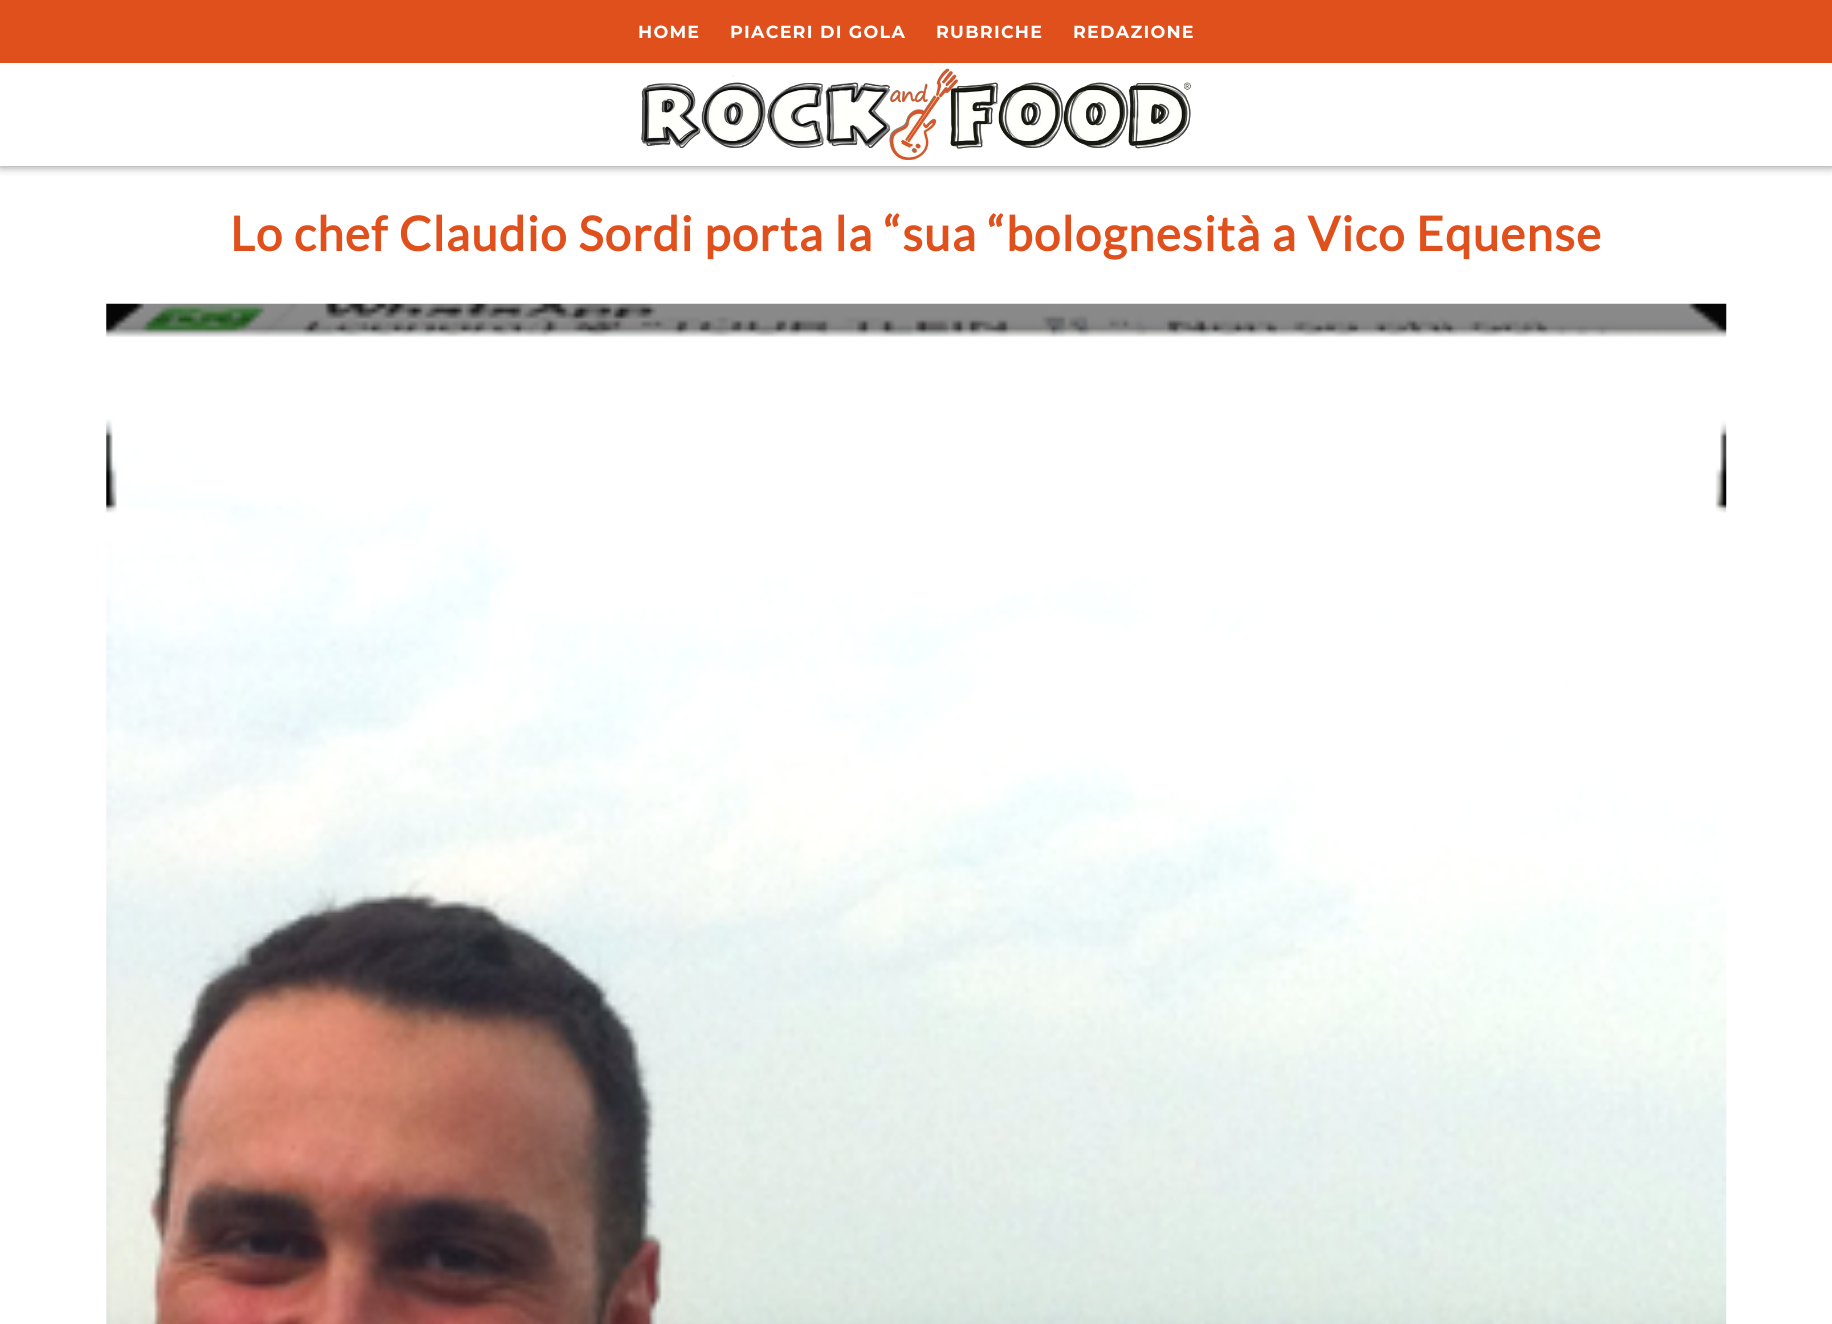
import math
import cairo

surface = cairo.ImageSurface(cairo.Format.RGB24, 1832, 1324)
ctx = cairo.Context(surface)
options = cairo.FontOptions()
options.set_hint_metrics(cairo.HintMetrics.OFF)
options.set_hint_style(cairo.HintStyle.NONE)
ctx.set_font_options(options)
ctx.set_miter_limit(4)


def ink(r, g, b):
    ctx.set_source_rgb(r / 255, g / 255, b / 255)


def write_spaced(x, y, s, letter, word):
    ctx.move_to(x, y)
    for ch in s:
        ctx.show_text(ch)
        ctx.rel_move_to(letter + word * (ch == ' '), 0)


def block(x, y, w, h, *color):
    ink(*color)
    ctx.rectangle(x, y, w, h)
    ctx.fill()


def round_path(x, y, w, h, r):
    ctx.new_sub_path()
    for i, (u, v) in enumerate([(x + w - r, y + h - r), (x + r, y + h - r), (x + r, y + r), (x + w - r, y + r)]):
        ctx.arc(u, v, r, i * math.pi / 2, (i + 1) * math.pi / 2)
    ctx.close_path()


def blur_box(x, y, w, h, r, blur, alpha):
    ctx.push_group_with_content(cairo.Content.ALPHA)
    ctx.set_operator(cairo.Operator.SOURCE)
    for i in range(15, -16, -2):
        e = blur * i / 6
        if min(w, h) + 2 * e > 0:
            ctx.set_source_rgba(0, 0, 0, alpha * math.erfc((i - 1) / 8.5) / 2)
            round_path(x - e, y - e, w + 2 * e, h + 2 * e, max(0, min(r + e + blur * .6, min(w, h) / 2 + e)))
            ctx.fill()
    ctx.mask(ctx.pop_group())


def paste(path, x, y, w, h):
    ctx.save()
    ctx.set_source_surface(cairo.ImageSurface.create_from_png(path), x, y)
    ctx.rectangle(x, y, w, h)
    ctx.fill()
    ctx.restore()


ink(255, 255, 255)
ctx.paint()
ctx.save()
ctx.rectangle(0, 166, 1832, 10)
ctx.clip()
ink(128, 128, 128)
blur_box(0, 0, 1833, 166, 0, 5, 1)
ctx.restore()
block(0, 0, 1832, 63, 224, 80, 29)
ctx.select_font_face("Montserrat", cairo.FontSlant.NORMAL, cairo.FontWeight.BOLD)
ctx.set_font_size(17.5)
ink(255, 255, 255)
write_spaced(638, 38, "HOME", 1.25, 0)
write_spaced(730, 38, "PIACERI DI GOLA", 1.25, 0)
write_spaced(936, 38, "RUBRICHE", 1.25, 0)
write_spaced(1073, 38, "REDAZIONE", 1.25, 0)
paste("pic1.png", 641, 68, 551, 92)
ctx.select_font_face("Lato", cairo.FontSlant.NORMAL, cairo.FontWeight.BOLD)
ctx.set_font_size(47.5)
ink(224, 80, 29)
write_spaced(230, 251, "Lo chef Claudio Sordi porta la “sua “bolognesità a Vico Equense", 1.25, 0)
paste("pic2.png", 106, 303, 1621, 1021)
surface.write_to_png("screenshot.png")
